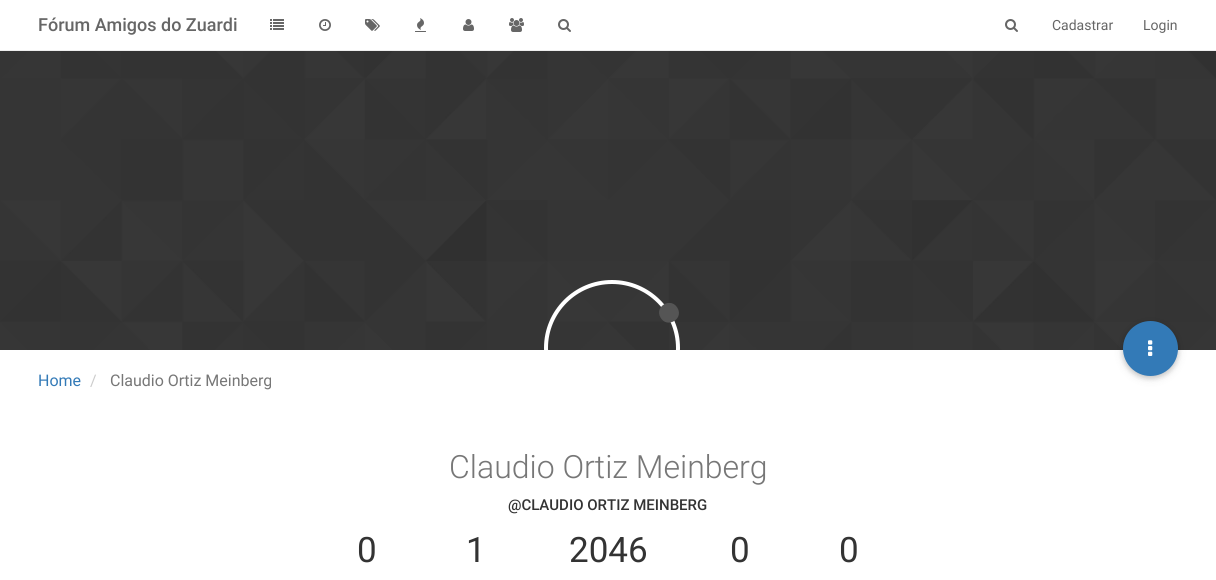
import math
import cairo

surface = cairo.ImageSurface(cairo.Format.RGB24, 1216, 580)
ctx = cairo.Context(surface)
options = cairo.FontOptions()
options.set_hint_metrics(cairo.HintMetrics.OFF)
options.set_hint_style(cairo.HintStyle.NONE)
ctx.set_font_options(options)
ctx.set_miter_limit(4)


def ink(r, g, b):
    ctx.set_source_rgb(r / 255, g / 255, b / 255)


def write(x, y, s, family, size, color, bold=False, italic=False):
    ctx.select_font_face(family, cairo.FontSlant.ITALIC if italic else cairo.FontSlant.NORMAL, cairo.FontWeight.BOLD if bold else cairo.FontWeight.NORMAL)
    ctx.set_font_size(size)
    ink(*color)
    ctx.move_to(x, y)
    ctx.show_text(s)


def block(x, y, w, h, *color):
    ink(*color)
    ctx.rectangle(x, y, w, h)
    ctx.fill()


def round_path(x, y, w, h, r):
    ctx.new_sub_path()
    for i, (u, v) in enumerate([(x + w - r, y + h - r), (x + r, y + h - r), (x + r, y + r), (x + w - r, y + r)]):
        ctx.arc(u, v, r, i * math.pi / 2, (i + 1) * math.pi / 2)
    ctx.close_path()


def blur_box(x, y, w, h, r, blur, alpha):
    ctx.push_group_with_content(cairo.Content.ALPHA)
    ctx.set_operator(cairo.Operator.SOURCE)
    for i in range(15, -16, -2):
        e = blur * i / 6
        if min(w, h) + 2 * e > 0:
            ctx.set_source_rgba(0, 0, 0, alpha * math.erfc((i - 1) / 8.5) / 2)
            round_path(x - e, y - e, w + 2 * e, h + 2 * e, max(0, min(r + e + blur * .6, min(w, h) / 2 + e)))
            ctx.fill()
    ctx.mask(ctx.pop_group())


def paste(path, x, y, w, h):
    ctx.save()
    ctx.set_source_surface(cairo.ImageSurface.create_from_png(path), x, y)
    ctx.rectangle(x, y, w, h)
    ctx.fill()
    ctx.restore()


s1 = dict(family="Roboto Medium", size=18, color=(102, 102, 102))
s2 = dict(family="Roboto", size=14, color=(102, 102, 102))
s3 = dict(family="Roboto", size=16, color=(51, 122, 183))
s4 = dict(family="Roboto", size=16, color=(204, 204, 204))
s5 = dict(family="Roboto", size=16, color=(119, 119, 119))
s6 = dict(family="Roboto Light", size=32, color=(119, 119, 119))
s7 = dict(family="Roboto Medium", size=15, color=(51, 51, 51))
s8 = dict(family="Roboto", size=35, color=(51, 51, 51))

ink(255, 255, 255)
ctx.paint()
block(0, 50, 1216, 1, 238, 238, 238)
write(38, 31, "Fórum Amigos do Zuardi", **s1)
paste("pic1.png", 270, 19, 14, 11)
paste("pic2.png", 319, 19, 12, 12)
paste("pic3.png", 365, 19, 15, 12)
paste("pic4.png", 415, 18, 11, 14)
paste("pic5.png", 463, 19, 11, 12)
paste("pic6.png", 509, 18, 15, 14)
paste("pic7.png", 558, 19, 13, 13)
paste("pic7.png", 1005, 19, 13, 13)
write(1052, 30, "Cadastrar", **s2)
write(1143, 30, "Login", **s2)
paste("pic8.png", 0, 51, 1216, 299)
ctx.arc(612, 348, 66, 0, 2 * math.pi)
ink(255, 255, 255)
ctx.set_line_width(4)
ctx.stroke()
ink(85, 85, 85)
ctx.new_path()
ctx.move_to(677.5, 308)
ctx.curve_to(684, 319, 667, 329, 660.5, 317.5)
ctx.curve_to(654, 306.5, 671, 296.5, 677.5, 308)
ctx.close_path()
ctx.fill()
ink(0, 0, 0)
blur_box(1123, 323, 55, 55, 27.5, 5, 0.12)
blur_box(1123, 323, 55, 55, 27.5, 2.5, 0.16)
ink(51, 122, 183)
ctx.arc(1150.5, 348.5, 27.5, 0, 2 * math.pi)
ctx.fill()
paste("pic9.png", 1148, 340, 5, 16)
write(38, 386, "Home", **s3)
write(90, 386, "/", **s4)
write(110, 386, "Claudio Ortiz Meinberg", **s5)
write(449, 478, "Claudio Ortiz Meinberg", **s6)
write(508, 510, "@CLAUDIO ORTIZ MEINBERG", **s7)
write(357, 562, "0", **s8)
write(466, 562, "1", **s8)
write(569, 562, "2046", **s8)
write(730, 562, "0", **s8)
write(839, 562, "0", **s8)
surface.write_to_png("screenshot.png")
